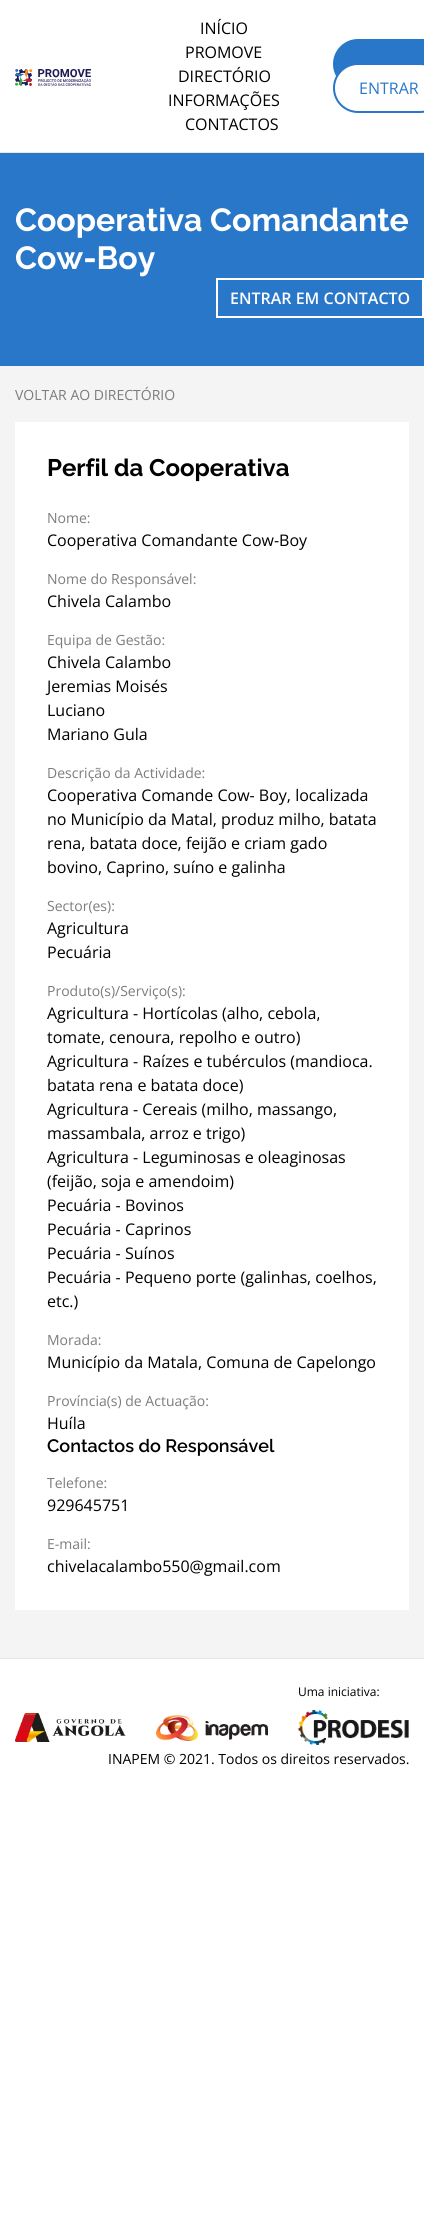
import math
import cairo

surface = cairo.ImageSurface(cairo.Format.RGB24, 424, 2213)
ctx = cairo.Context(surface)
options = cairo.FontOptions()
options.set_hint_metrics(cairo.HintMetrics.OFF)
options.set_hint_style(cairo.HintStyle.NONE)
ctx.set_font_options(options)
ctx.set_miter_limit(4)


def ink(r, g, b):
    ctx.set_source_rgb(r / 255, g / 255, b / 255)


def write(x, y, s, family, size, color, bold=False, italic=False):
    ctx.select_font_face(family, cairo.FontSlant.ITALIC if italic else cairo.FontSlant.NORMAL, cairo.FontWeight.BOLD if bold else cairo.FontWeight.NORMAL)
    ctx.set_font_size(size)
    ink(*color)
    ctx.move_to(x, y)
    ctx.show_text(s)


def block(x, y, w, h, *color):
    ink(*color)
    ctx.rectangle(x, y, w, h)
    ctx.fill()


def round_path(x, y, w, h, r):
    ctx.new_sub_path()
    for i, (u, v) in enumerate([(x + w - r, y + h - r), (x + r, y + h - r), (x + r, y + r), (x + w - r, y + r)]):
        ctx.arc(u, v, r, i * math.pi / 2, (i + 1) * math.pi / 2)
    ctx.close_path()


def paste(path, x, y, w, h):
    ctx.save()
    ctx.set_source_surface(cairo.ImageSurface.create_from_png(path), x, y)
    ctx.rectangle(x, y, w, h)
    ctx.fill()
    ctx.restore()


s1 = dict(family="Open Sans", size=16, color=(0, 0, 0))
s2 = dict(family="Open Sans", size=16, color=(41, 119, 201))
s3 = dict(family="Raleway", size=32, color=(255, 255, 255), bold=True)
s4 = dict(family="Open Sans SemiBold", size=16, color=(255, 255, 255))
s5 = dict(family="Open Sans", size=14, color=(124, 124, 124))
s6 = dict(family="Raleway", size=24, color=(0, 0, 0), bold=True)
s7 = dict(family="Raleway SemiBold", size=18, color=(0, 0, 0))
s8 = dict(family="Open Sans", size=12, color=(0, 0, 0))
s9 = dict(family="Open Sans", size=14, color=(0, 0, 0))

ink(255, 255, 255)
ctx.paint()
block(0, 152, 424, 1, 230, 230, 230)
paste("pic1.png", 15, 69, 76, 17)
write(200, 34, "INÍCIO", **s1)
write(185, 58, "PROMOVE", **s1)
write(178, 82, "DIRECTÓRIO", **s1)
write(168, 106, "INFORMAÇÕES", **s1)
write(185, 130, "CONTACTOS", **s1)
ink(41, 119, 201)
round_path(334, 40, 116, 48, 24)
ctx.fill_preserve()
ctx.stroke()
ink(255, 255, 255)
round_path(334, 64, 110, 48, 24)
ctx.fill_preserve()
ink(41, 119, 201)
ctx.stroke()
write(359, 94, "ENTRAR", **s2)
block(0, 153, 424, 213, 41, 119, 201)
write(15, 231, "Cooperativa Comandante", **s3)
write(15, 269, "Cow-Boy", **s3)
ctx.rectangle(217, 279, 206, 38)
ctx.stroke()
write(230, 304, "ENTRAR EM CONTACTO", **s4)
block(0, 366, 424, 1292, 244, 244, 244)
write(15, 400, "VOLTAR AO DIRECTÓRIO", **s5)
block(15, 422, 394, 1188, 255, 255, 255)
write(47, 476, "Perfil da Cooperativa", **s6)
write(47, 523, "Nome:", **s5)
write(47, 546, "Cooperativa Comandante Cow-Boy", **s1)
write(47, 584, "Nome do Responsável:", **s5)
write(47, 607, "Chivela Calambo", **s1)
write(47, 645, "Equipa de Gestão:", **s5)
write(47, 668, "Chivela Calambo", **s1)
write(47, 692, "Jeremias Moisés", **s1)
write(47, 716, "Luciano", **s1)
write(47, 740, "Mariano Gula", **s1)
write(47, 778, "Descrição da Actividade:", **s5)
write(47, 801, "Cooperativa Comande Cow- Boy, localizada", **s1)
write(47, 825, "no Município da Matal, produz milho, batata", **s1)
write(47, 849, "rena, batata doce, feijão e criam gado", **s1)
write(47, 873, "bovino, Caprino, suíno e galinha", **s1)
write(47, 911, "Sector(es):", **s5)
write(47, 934, "Agricultura", **s1)
write(47, 958, "Pecuária", **s1)
write(47, 996, "Produto(s)/Serviço(s):", **s5)
write(47, 1019, "Agricultura - Hortícolas (alho, cebola,", **s1)
write(47, 1043, "tomate, cenoura, repolho e outro)", **s1)
write(47, 1067, "Agricultura - Raízes e tubérculos (mandioca.", **s1)
write(47, 1091, "batata rena e batata doce)", **s1)
write(47, 1115, "Agricultura - Cereais (milho, massango,", **s1)
write(47, 1139, "massambala, arroz e trigo)", **s1)
write(47, 1163, "Agricultura - Leguminosas e oleaginosas", **s1)
write(47, 1187, "(feijão, soja e amendoim)", **s1)
write(47, 1211, "Pecuária - Bovinos", **s1)
write(47, 1235, "Pecuária - Caprinos", **s1)
write(47, 1259, "Pecuária - Suínos", **s1)
write(47, 1283, "Pecuária - Pequeno porte (galinhas, coelhos,", **s1)
write(47, 1307, "etc.)", **s1)
write(47, 1345, "Morada:", **s5)
write(47, 1368, "Município da Matala, Comuna de Capelongo", **s1)
write(47, 1406, "Província(s) de Actuação:", **s5)
write(47, 1429, "Huíla", **s1)
write(47, 1452, "Contactos do Responsável", **s7)
write(47, 1488, "Telefone:", **s5)
write(47, 1511, "929645751", **s1)
write(47, 1549, "E-mail:", **s5)
write(47, 1572, "chivelacalambo550@gmail.com", **s1)
block(0, 1658, 424, 1, 230, 230, 230)
write(298, 1696, "Uma iniciativa:", **s8)
paste("pic2.png", 298, 1709, 111, 37)
paste("pic3.png", 15, 1713, 111, 29)
paste("pic4.png", 156, 1715, 112, 26)
write(108, 1764, "INAPEM © 2021. Todos os direitos reservados.", **s9)
surface.write_to_png("screenshot.png")
